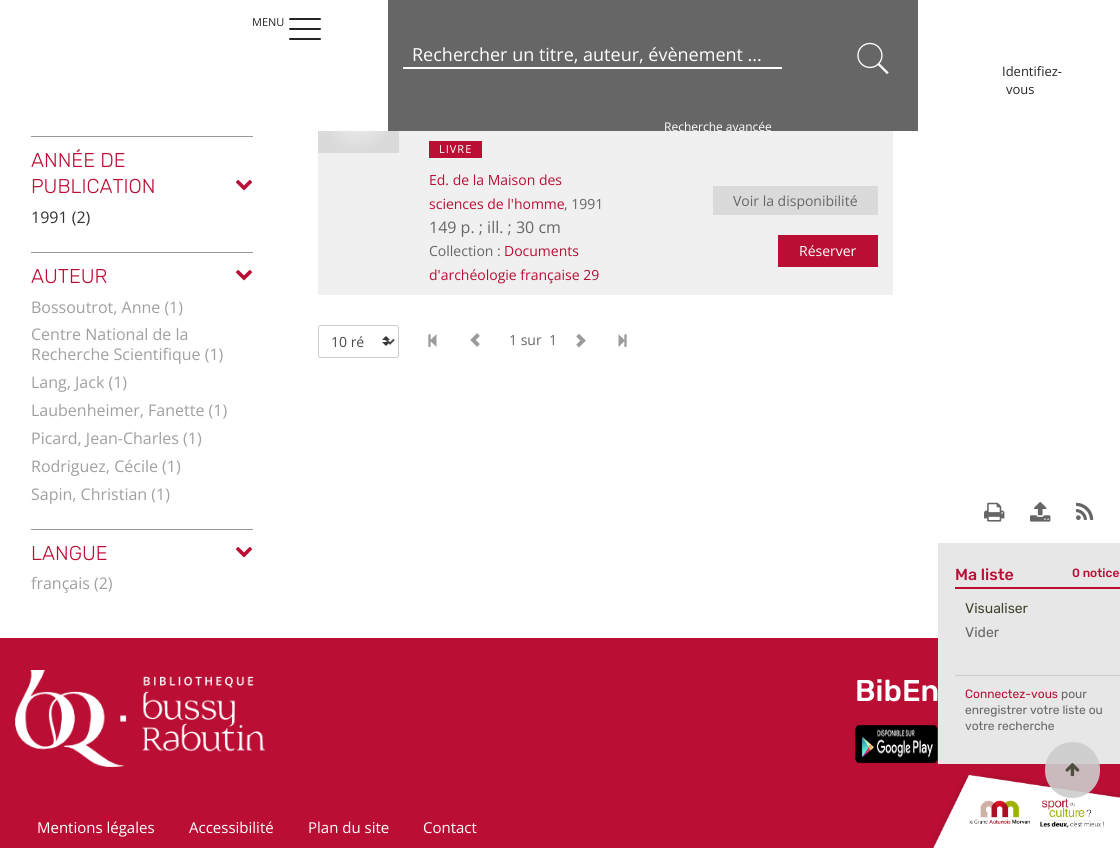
import math
import cairo

surface = cairo.ImageSurface(cairo.Format.RGB24, 1120, 848)
ctx = cairo.Context(surface)
options = cairo.FontOptions()
options.set_hint_metrics(cairo.HintMetrics.OFF)
options.set_hint_style(cairo.HintStyle.NONE)
ctx.set_font_options(options)
ctx.set_miter_limit(4)


def ink(r, g, b):
    ctx.set_source_rgb(r / 255, g / 255, b / 255)


def write(x, y, s, family, size, color, bold=False, italic=False):
    ctx.select_font_face(family, cairo.FontSlant.ITALIC if italic else cairo.FontSlant.NORMAL, cairo.FontWeight.BOLD if bold else cairo.FontWeight.NORMAL)
    ctx.set_font_size(size)
    ink(*color)
    ctx.move_to(x, y)
    ctx.show_text(s)


def write_spaced(x, y, s, letter, word):
    ctx.move_to(x, y)
    for ch in s:
        ctx.show_text(ch)
        ctx.rel_move_to(letter + word * (ch == ' '), 0)


def block(x, y, w, h, *color):
    ink(*color)
    ctx.rectangle(x, y, w, h)
    ctx.fill()


def round_path(x, y, w, h, r):
    ctx.new_sub_path()
    for i, (u, v) in enumerate([(x + w - r, y + h - r), (x + r, y + h - r), (x + r, y + r), (x + w - r, y + r)]):
        ctx.arc(u, v, r, i * math.pi / 2, (i + 1) * math.pi / 2)
    ctx.close_path()


def paste(path, x, y, w, h):
    ctx.save()
    ctx.set_source_surface(cairo.ImageSurface.create_from_png(path), x, y)
    ctx.rectangle(x, y, w, h)
    ctx.fill()
    ctx.restore()


s1 = dict(family="Open Sans", size=11, color=(38, 38, 38))
s2 = dict(family="Open Sans", size=18, color=(255, 255, 255))
s3 = dict(family="Open Sans", size=12, color=(255, 255, 255))
s4 = dict(family="Open Sans", size=13, color=(38, 38, 38))
s5 = dict(family="Rubik Light", size=20, color=(186, 14, 52))
s6 = dict(family="Open Sans", size=16, color=(51, 51, 51))
s7 = dict(family="Open Sans", size=16, color=(160, 160, 160))
s8 = dict(family="Open Sans", size=14, color=(186, 14, 52))
s9 = dict(family="Open Sans", size=14, color=(102, 102, 102))
s10 = dict(family="Open Sans", size=16, color=(102, 102, 102))
s11 = dict(family="Open Sans", size=14, color=(255, 255, 255))
s12 = dict(family="Open Sans", size=14, color=(70, 74, 76))
s13 = dict(family="Rubik Medium", size=16, color=(186, 14, 52))
s14 = dict(family="Rubik Medium", size=12, color=(186, 14, 52))
s15 = dict(family="Rubik", size=14, color=(66, 67, 49))
s16 = dict(family="Rubik", size=14, color=(102, 102, 102))
s17 = dict(family="Rubik", size=12, color=(186, 14, 52))
s18 = dict(family="Rubik", size=12, color=(102, 102, 102))
s19 = dict(family="Rubik Medium", size=30, color=(255, 255, 255))
s20 = dict(family="Open Sans", size=15, color=(255, 255, 255))

ink(255, 255, 255)
ctx.paint()
write(252, 26, "MENU", **s1)
round_path(289, 18, 32, 2, 1)
ctx.fill()
round_path(289, 28, 32, 2, 1)
ctx.fill()
round_path(289, 38, 32, 2, 1)
ctx.fill()
block(388, 0, 530, 131, 102, 102, 102)
block(403, 67, 379, 2, 255, 255, 255)
write(412, 61, "Rechercher un titre, auteur, évènement ...", **s2)
block(318, 131, 575, 164, 240, 240, 240)
write(664, 131, "Recherche avancée", **s3)
paste("pic1.png", 857, 42, 32, 33)
write(1002, 76, "Identifiez-", **s4)
write(1006, 94, "vous", **s4)
block(31, 136, 222, 1, 153, 153, 153)
write(31, 167, "ANNÉE DE", **s5)
write(31, 193, "PUBLICATION", **s5)
paste("pic2.png", 235, 180, 18, 11)
write(31, 223, "1991 (2)", **s6)
block(31, 252, 222, 1, 153, 153, 153)
write(31, 283, "AUTEUR", **s5)
paste("pic2.png", 235, 270, 18, 11)
write(31, 313, "Bossoutrot, Anne (1)", **s7)
write(31, 340, "Centre National de la", **s7)
write(31, 360, "Recherche Scientifique (1)", **s7)
write(31, 388, "Lang, Jack (1)", **s7)
write(31, 416, "Laubenheimer, Fanette (1)", **s7)
write(31, 444, "Picard, Jean-Charles (1)", **s7)
write(31, 472, "Rodriguez, Cécile (1)", **s7)
write(31, 500, "Sapin, Christian (1)", **s7)
block(31, 529, 222, 1, 153, 153, 153)
write(31, 560, "LANGUE", **s5)
paste("pic2.png", 235, 547, 18, 11)
write(31, 589, "français (2)", **s7)
gradient = cairo.RadialGradient(0, 0, 0, 0, 0, 1)
gradient.set_matrix(cairo.Matrix(1 / 40, 0, 0, 1 / 54, -1 * 358 / 40, -1 * 99 / 54))
gradient.add_color_stop_rgba(0, 0.973, 0.973, 0.973, 1)
gradient.add_color_stop_rgba(1, 0.855, 0.855, 0.855, 1)
ctx.set_source(gradient)
ctx.rectangle(318, 131, 81, 22)
ctx.fill()
block(429, 141, 53, 17, 186, 14, 52)
ctx.set_font_size(11)
ink(255, 255, 255)
write_spaced(439, 153, "LIVRE", 1, 0)
write(429, 185, "Ed. de la Maison des", **s8)
write(429, 209, "sciences de l'homme", **s8)
write(564, 209, ", 1991", **s9)
write(429, 233, "149 p. ; ill. ; 30 cm", **s10)
write(429, 256, "Collection :", **s9)
write(504, 256, "Documents", **s8)
write(429, 280, "d'archéologie française 29", **s8)
block(713, 186, 165, 29, 218, 218, 218)
write(733, 206, "Voir la disponibilité", **s9)
block(778, 235, 100, 32, 186, 14, 52)
write(799, 256, "Réserver", **s11)
paste("pic3.png", 382, 336, 8, 10)
round_path(318.5, 325.5, 80, 32, 2)
ink(204, 204, 204)
ctx.set_line_width(1)
ctx.stroke()
ctx.new_path()
ctx.move_to(386, 339.5)
ctx.line_to(390, 343.5)
ctx.line_to(394, 339.5)
ink(70, 74, 76)
ctx.set_line_width(2)
ctx.stroke()
write(331, 347, "10 ré", **s12)
paste("pic4.png", 428, 334, 9, 13)
paste("pic5.png", 470, 333, 10, 14)
write(509, 345, "1 sur  1", **s9)
paste("pic6.png", 576, 333, 10, 15)
paste("pic7.png", 618, 334, 9, 13)
paste("pic8.png", 984, 502, 21, 20)
paste("pic9.png", 1030, 502, 21, 20)
paste("pic10.png", 1076, 502, 18, 18)
block(0, 638, 1120, 210, 186, 14, 52)
block(938, 543, 182, 221, 231, 231, 231)
block(955, 587, 165, 2, 186, 14, 52)
write(955, 580, "Ma liste", **s13)
write(1072, 577, "0 notice", **s14)
write(965, 613, "Visualiser", **s15)
write(965, 637, "Vider", **s16)
block(955, 675, 165, 1, 204, 204, 204)
write(965, 698, "Connectez-vous", **s17)
write(1061, 698, "pour", **s18)
write(965, 714, "enregistrer votre liste ou", **s18)
write(965, 730, "votre recherche", **s18)
paste("pic11.png", 15, 670, 250, 97)
write(855, 701, "BibEn", **s19)
paste("pic12.png", 855, 725, 83, 39)
write(37, 833, "Mentions légales", **s20)
write(189, 833, "Accessibilité", **s20)
write(308, 833, "Plan du site", **s20)
write(423, 833, "Contact", **s20)
paste("pic13.png", 933, 775, 187, 73)
ctx.set_source_rgba(0.8, 0.8, 0.8, 0.9)
round_path(1045, 742, 55, 56, 27.5)
ctx.fill()
paste("pic14.png", 1065, 763, 15, 14)
surface.write_to_png("screenshot.png")
